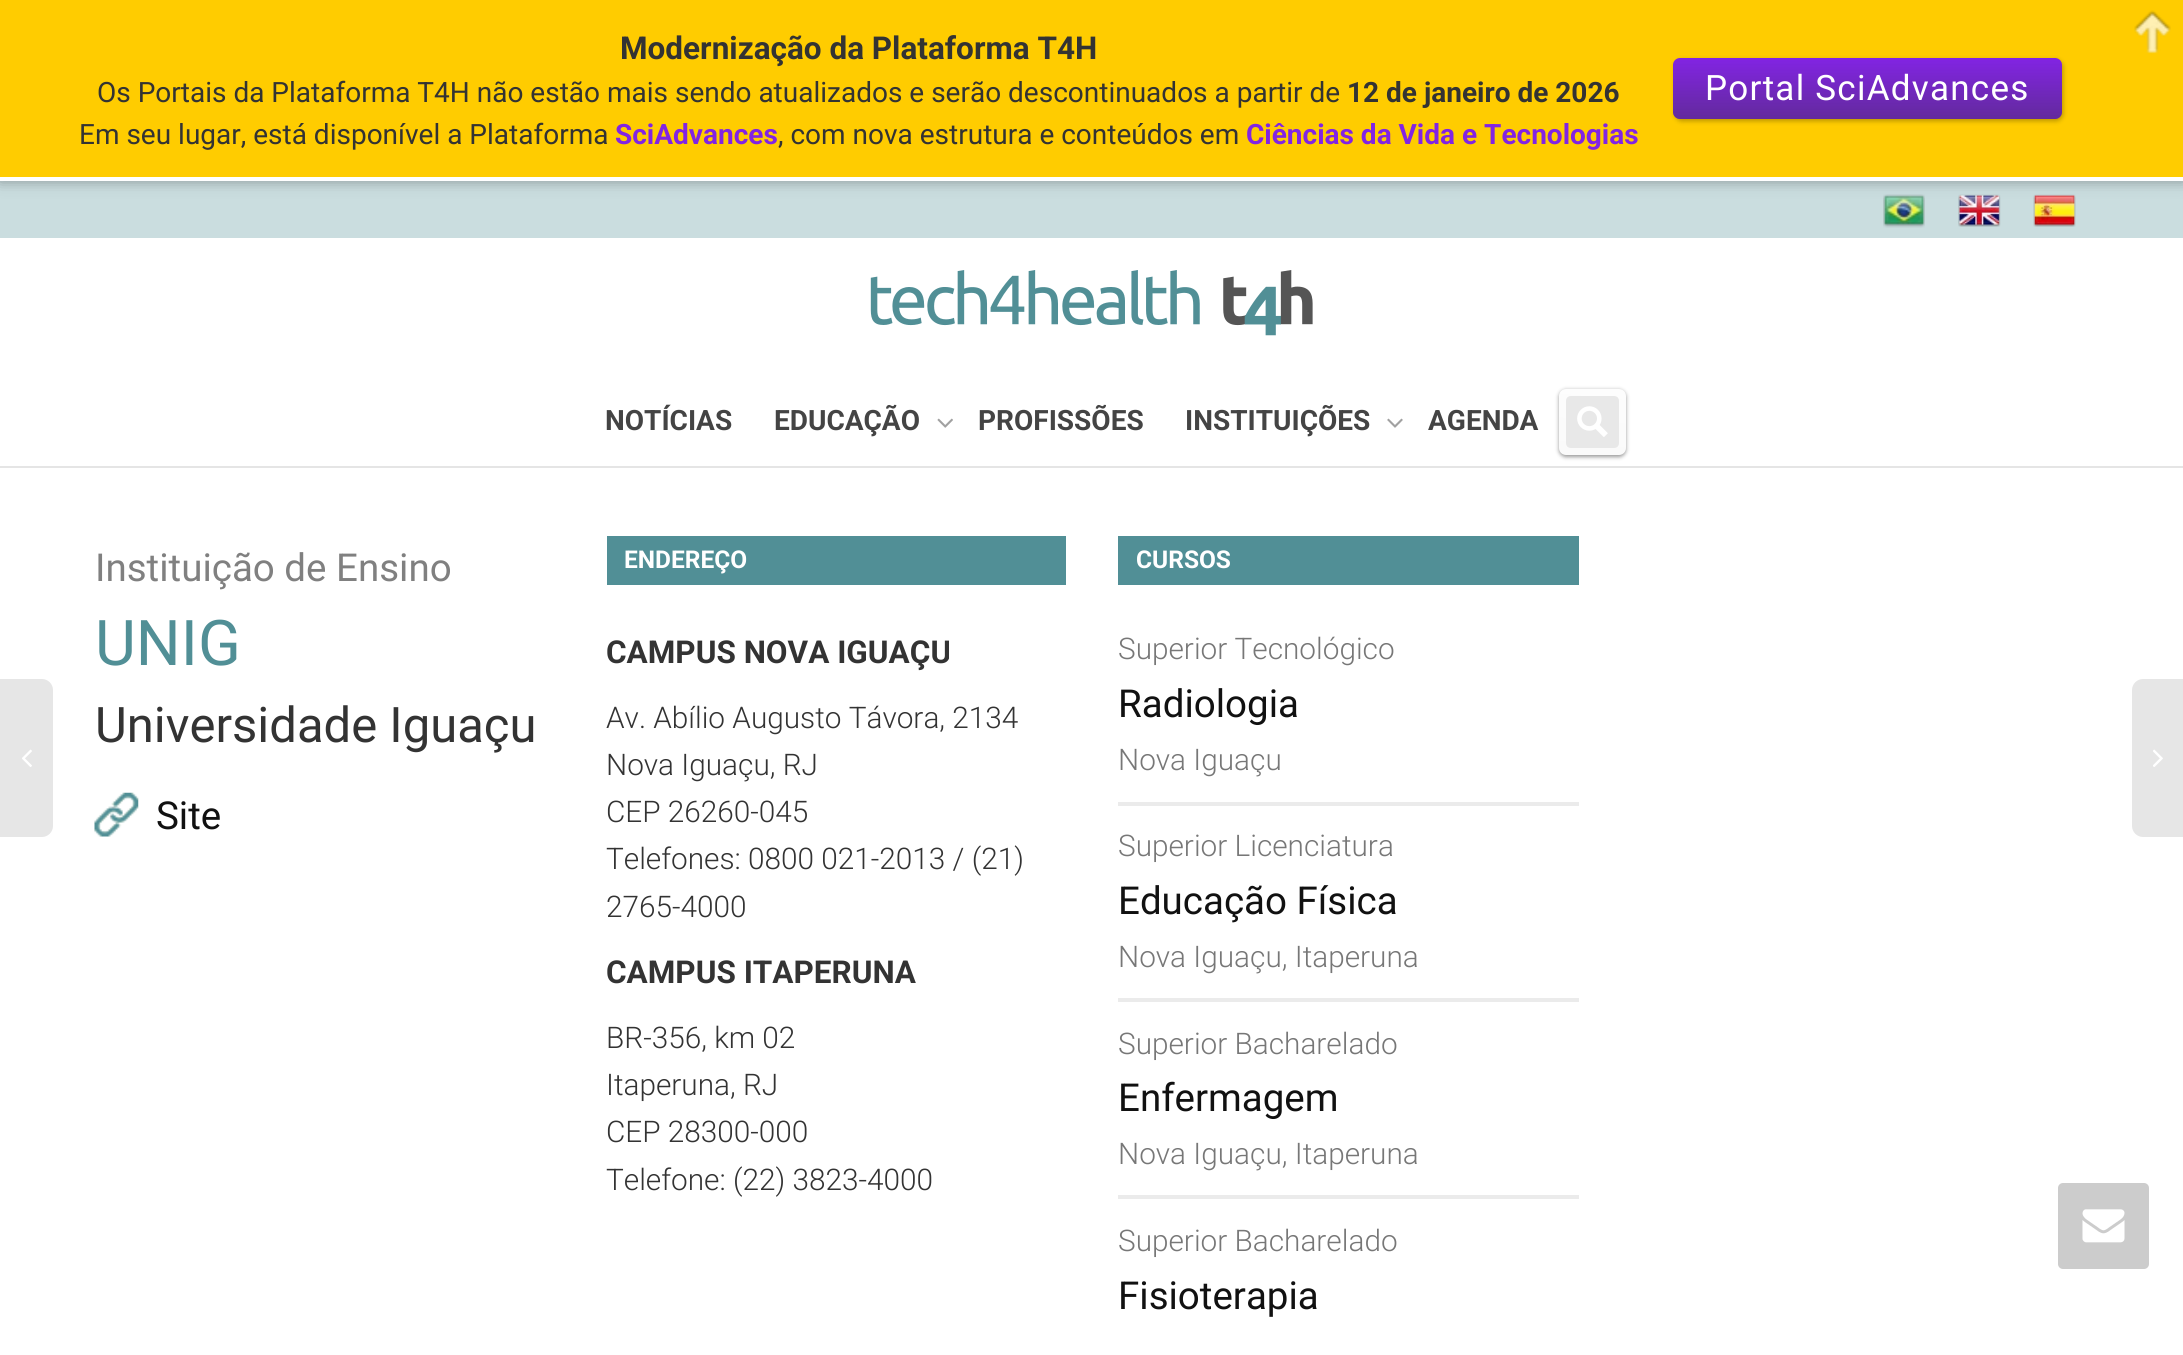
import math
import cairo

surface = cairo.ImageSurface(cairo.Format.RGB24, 2183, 1355)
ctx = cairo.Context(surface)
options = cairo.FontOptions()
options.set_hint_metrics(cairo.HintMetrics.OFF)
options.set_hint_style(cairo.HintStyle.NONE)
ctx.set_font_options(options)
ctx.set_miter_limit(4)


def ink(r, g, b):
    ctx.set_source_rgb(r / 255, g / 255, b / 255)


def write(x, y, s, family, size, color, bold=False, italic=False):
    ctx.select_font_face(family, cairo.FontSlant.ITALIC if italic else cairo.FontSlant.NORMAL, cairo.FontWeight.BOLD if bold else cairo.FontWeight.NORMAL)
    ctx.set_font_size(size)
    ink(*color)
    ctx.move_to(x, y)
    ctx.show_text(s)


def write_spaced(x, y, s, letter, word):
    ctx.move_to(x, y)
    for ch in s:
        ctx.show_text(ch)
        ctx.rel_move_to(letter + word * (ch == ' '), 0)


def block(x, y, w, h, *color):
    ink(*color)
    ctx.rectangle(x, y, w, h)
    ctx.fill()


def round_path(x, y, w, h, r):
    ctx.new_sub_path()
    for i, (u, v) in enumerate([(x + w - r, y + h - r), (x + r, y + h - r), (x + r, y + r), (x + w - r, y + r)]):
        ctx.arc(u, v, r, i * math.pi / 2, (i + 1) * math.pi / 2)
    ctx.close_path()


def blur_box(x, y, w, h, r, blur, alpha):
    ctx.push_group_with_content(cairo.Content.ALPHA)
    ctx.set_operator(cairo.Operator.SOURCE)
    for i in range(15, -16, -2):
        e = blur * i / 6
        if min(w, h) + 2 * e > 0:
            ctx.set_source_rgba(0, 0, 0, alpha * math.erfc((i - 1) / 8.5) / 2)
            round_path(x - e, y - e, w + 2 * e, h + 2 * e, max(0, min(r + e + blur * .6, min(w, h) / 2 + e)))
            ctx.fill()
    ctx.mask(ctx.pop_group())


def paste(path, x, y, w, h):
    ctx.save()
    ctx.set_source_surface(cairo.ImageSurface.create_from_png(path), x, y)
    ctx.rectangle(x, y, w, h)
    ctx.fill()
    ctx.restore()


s1 = dict(family="Roboto", size=31.5, color=(51, 51, 51), bold=True)
s2 = dict(family="Roboto", size=28, color=(51, 51, 51))
s3 = dict(family="Roboto", size=28, color=(51, 51, 51), bold=True)
s4 = dict(family="Roboto", size=28, color=(130, 36, 227), bold=True)
s5 = dict(family="Roboto", size=28, color=(68, 68, 68), bold=True)
s6 = dict(family="Roboto", size=38.5, color=(128, 128, 128))
s7 = dict(family="Roboto", size=63, color=(81, 143, 150))
s8 = dict(family="Roboto", size=49, color=(51, 51, 51))
s9 = dict(family="Roboto", size=38.5, color=(17, 17, 17))
s10 = dict(family="Roboto", size=24.5, color=(255, 255, 255), bold=True)
s11 = dict(family="Roboto Light", size=29.75, color=(51, 51, 51))
s12 = dict(family="Roboto Light", size=29.75, color=(119, 119, 119))

ink(255, 255, 255)
ctx.paint()
block(0, 181, 2183, 57, 202, 221, 223)
paste("pic2.png", 1883, 194, 42, 34)
paste("pic3.png", 1958, 194, 43, 33)
paste("pic4.png", 2033, 194, 43, 33)
ink(0, 0, 0)
blur_box(0, 0, 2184, 180, 0, 7.5, 0.4)
block(0, 0, 2183, 177, 255, 204, 0)
block(0, 177, 2183, 4, 255, 255, 255)
write(620, 59, "Modernização da Plataforma T4H", **s1)
write(97, 102, "Os Portais da Plataforma T4H não estão mais sendo atualizados e serão descontinuados a partir de", **s2)
write(1347, 102, "12 de janeiro de 2026", **s3)
write(79, 144, "Em seu lugar, está disponível a Plataforma", **s2)
write(615, 144, "SciAdvances", **s4)
write(778, 144, ", com nova estrutura e conteúdos em", **s2)
write(1246, 144, "Ciências da Vida e Tecnologias", **s4)
ink(0, 0, 0)
blur_box(1675, 60, 388, 61, 7, 2.5, 0.28)
ink(130, 36, 227)
round_path(1673, 58, 389, 61, 7)
ctx.fill()
gradient = cairo.LinearGradient(1673, 58, 1673, 119)
gradient.add_color_stop_rgba(0, 0.2, 0.2, 0.2, 0)
gradient.add_color_stop_rgba(1, 0.2, 0.2, 0.2, 0.4)
ctx.set_source(gradient)
round_path(1673, 58, 389, 61, 7)
ctx.fill()
ctx.select_font_face("Roboto")
ctx.set_font_size(35)
ink(255, 255, 255)
write_spaced(1705, 100, "Portal SciAdvances", 1.25, 0)
paste("pic1.png", 2134, 10, 37, 44)
block(0, 466, 2183, 2, 229, 229, 229)
paste("pic5.png", 870, 270, 443, 66)
write(605, 430, "NOTÍCIAS", **s5)
write(774, 430, "EDUCAÇÃO", **s5)
paste("pic6.png", 937, 418, 16, 10)
write(978, 430, "PROFISSÕES", **s5)
write(1185, 430, "INSTITUIÇÕES", **s5)
paste("pic7.png", 1387, 418, 16, 10)
write(1428, 430, "AGENDA", **s5)
ink(153, 153, 153)
blur_box(1559, 390, 67, 67, 7, 2, 1)
gradient = cairo.LinearGradient(1596, 386, 1589, 458)
gradient.add_color_stop_rgba(0, 0.992, 0.992, 0.992, 1)
gradient.add_color_stop_rgba(1, 0.98, 0.98, 0.98, 1)
ctx.set_source(gradient)
round_path(1559, 389, 67, 66, 7)
ctx.fill()
ink(232, 232, 232)
ctx.new_path()
ctx.move_to(1571, 396)
ctx.line_to(1614, 396)
ctx.curve_to(1617, 396, 1619, 398, 1619, 401)
ctx.line_to(1619, 443)
ctx.curve_to(1619, 446, 1617, 448, 1614, 448)
ctx.line_to(1571, 448)
ctx.curve_to(1568, 448, 1566, 446, 1566, 443)
ctx.line_to(1566, 401)
ctx.curve_to(1566, 398, 1568, 396, 1571, 396)
ctx.close_path()
ctx.fill()
paste("pic8.png", 1577, 406, 31, 31)
write(95, 581, "Instituição de Ensino", **s6)
write(95, 665, "UNIG", **s7)
write(95, 742, "Universidade Iguaçu", **s8)
paste("pic9.png", 94, 792, 45, 45)
write(156, 829, "Site", **s9)
block(607, 536, 459, 49, 81, 143, 150)
write(624, 568, "ENDEREÇO", **s10)
write(606, 663, "CAMPUS NOVA IGUAÇU", **s1)
write(606, 728, "Av. Abílio Augusto Távora, 2134", **s11)
write(606, 775, "Nova Iguaçu, RJ", **s11)
write(606, 822, "CEP 26260-045", **s11)
write(606, 869, "Telefones: 0800 021-2013 / (21)", **s11)
write(606, 917, "2765-4000", **s11)
write(606, 983, "CAMPUS ITAPERUNA", **s1)
write(606, 1048, "BR-356, km 02", **s11)
write(606, 1095, "Itaperuna, RJ", **s11)
write(606, 1142, "CEP 28300-000", **s11)
write(606, 1190, "Telefone: (22) 3823-4000", **s11)
block(1118, 536, 461, 49, 81, 143, 150)
write(1136, 568, "CURSOS", **s10)
write(1118, 659, "Superior Tecnológico", **s12)
write(1118, 717, "Radiologia", **s9)
write(1118, 770, "Nova Iguaçu", **s12)
block(1118, 802, 461, 4, 235, 235, 235)
write(1118, 856, "Superior Licenciatura", **s12)
write(1118, 914, "Educação Física", **s9)
write(1118, 967, "Nova Iguaçu, Itaperuna", **s12)
block(1118, 998, 461, 4, 235, 235, 235)
write(1118, 1054, "Superior Bacharelado", **s12)
write(1118, 1111, "Enfermagem", **s9)
write(1118, 1164, "Nova Iguaçu, Itaperuna", **s12)
block(1118, 1195, 461, 4, 235, 235, 235)
write(1118, 1251, "Superior Bacharelado", **s12)
write(1118, 1309, "Fisioterapia", **s9)
ink(230, 230, 230)
ctx.new_path()
ctx.move_to(-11, 679)
ctx.line_to(42, 679)
ctx.curve_to(48, 679, 53, 684, 53, 690)
ctx.line_to(53, 826)
ctx.curve_to(53, 832, 48, 837, 42, 837)
ctx.line_to(-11, 837)
ctx.close_path()
ctx.fill()
paste("pic10.png", 22, 749, 10, 18)
ctx.new_path()
ctx.move_to(2143, 679)
ctx.line_to(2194, 679)
ctx.line_to(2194, 837)
ctx.line_to(2143, 837)
ctx.curve_to(2137, 837, 2132, 832, 2132, 826)
ctx.line_to(2132, 690)
ctx.curve_to(2132, 684, 2137, 679, 2143, 679)
ctx.close_path()
ctx.fill()
paste("pic11.png", 2153, 749, 10, 18)
ink(204, 204, 204)
round_path(2058, 1183, 91, 86, 5)
ctx.fill()
paste("pic12.png", 2082, 1209, 43, 34)
surface.write_to_png("screenshot.png")
